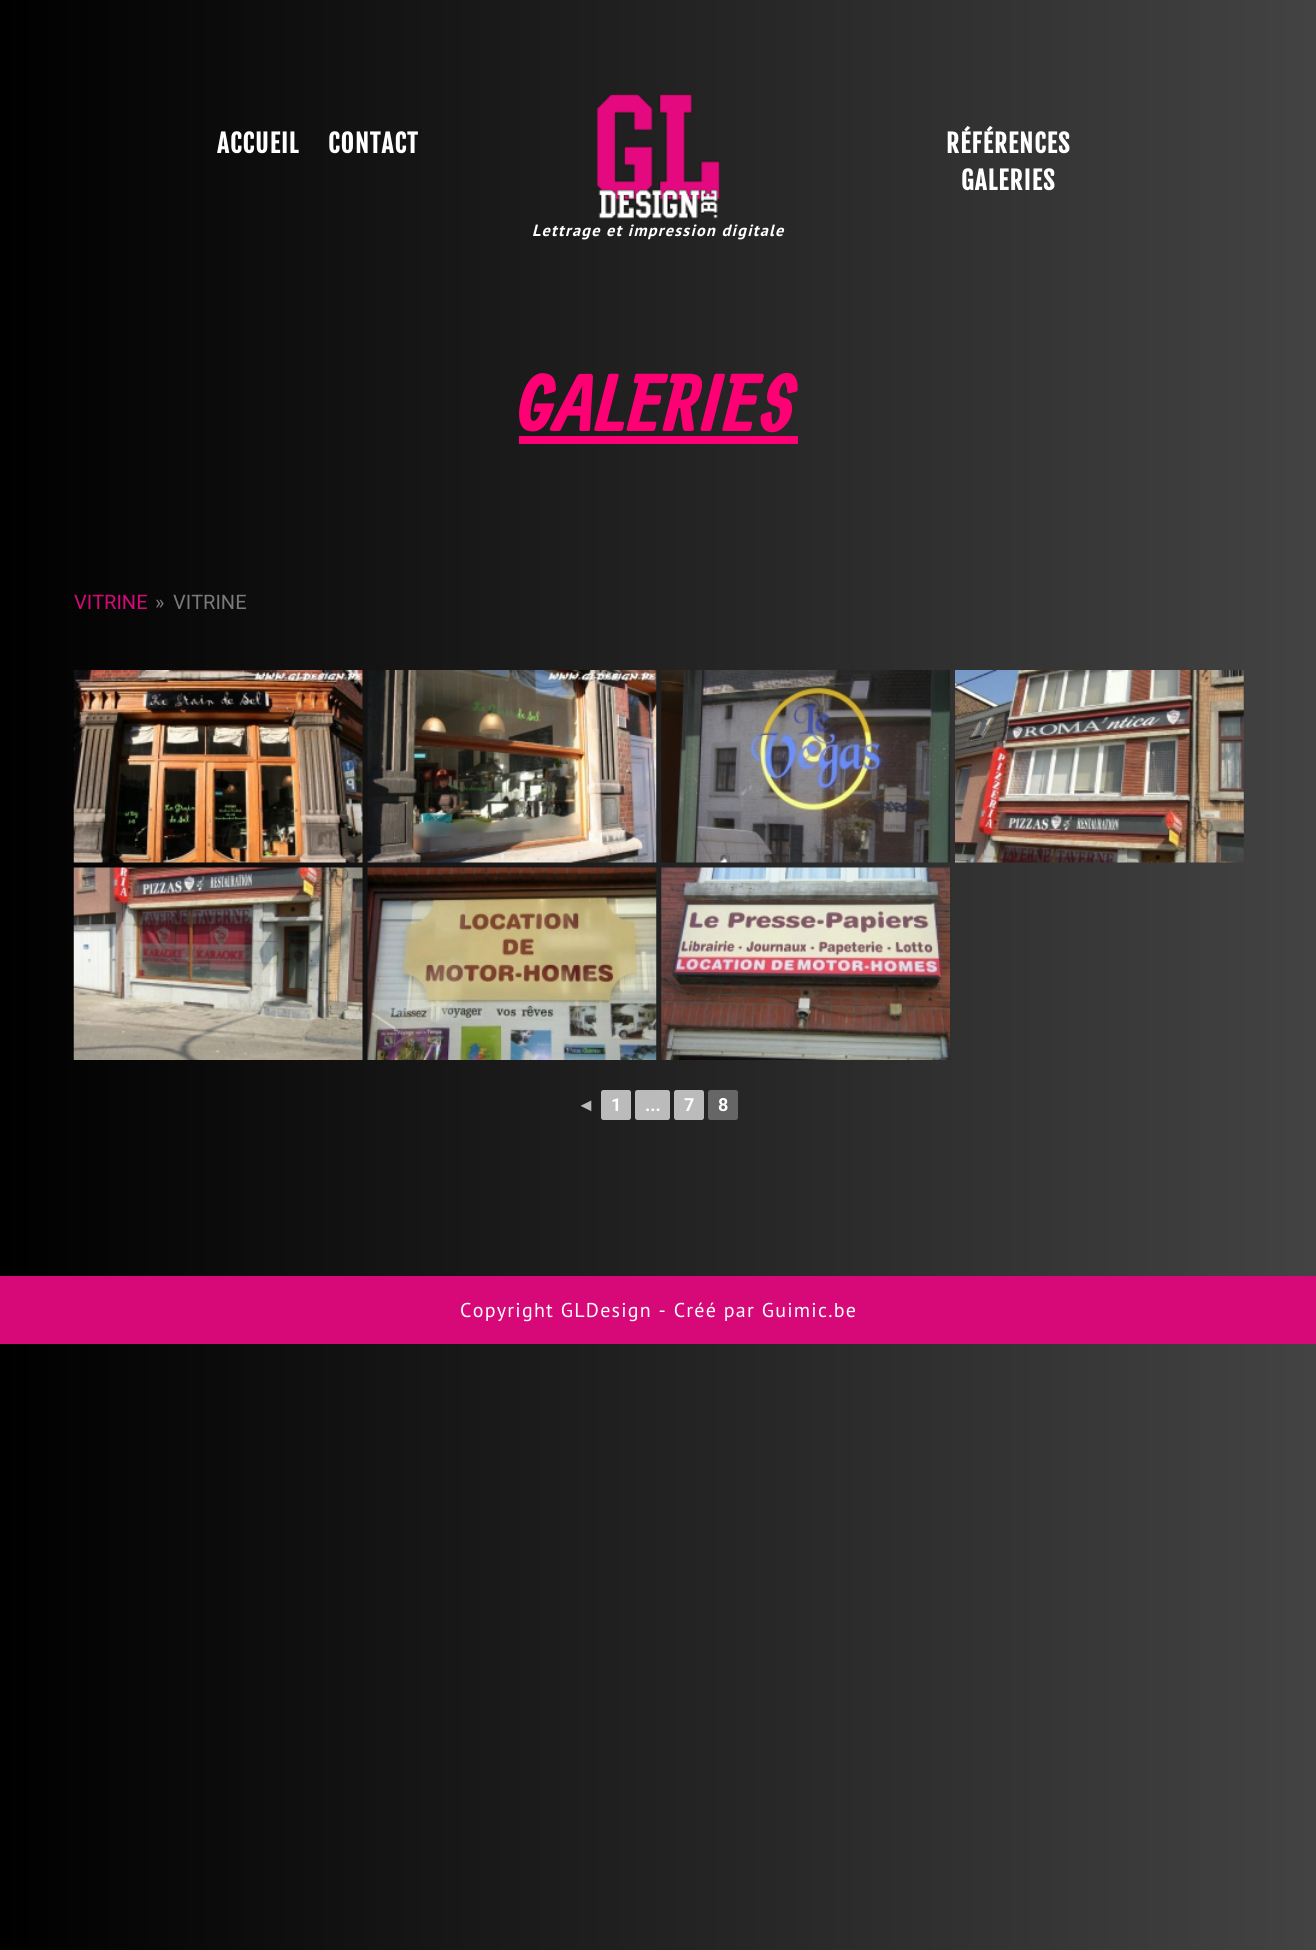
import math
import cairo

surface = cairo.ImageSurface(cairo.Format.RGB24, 1316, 1950)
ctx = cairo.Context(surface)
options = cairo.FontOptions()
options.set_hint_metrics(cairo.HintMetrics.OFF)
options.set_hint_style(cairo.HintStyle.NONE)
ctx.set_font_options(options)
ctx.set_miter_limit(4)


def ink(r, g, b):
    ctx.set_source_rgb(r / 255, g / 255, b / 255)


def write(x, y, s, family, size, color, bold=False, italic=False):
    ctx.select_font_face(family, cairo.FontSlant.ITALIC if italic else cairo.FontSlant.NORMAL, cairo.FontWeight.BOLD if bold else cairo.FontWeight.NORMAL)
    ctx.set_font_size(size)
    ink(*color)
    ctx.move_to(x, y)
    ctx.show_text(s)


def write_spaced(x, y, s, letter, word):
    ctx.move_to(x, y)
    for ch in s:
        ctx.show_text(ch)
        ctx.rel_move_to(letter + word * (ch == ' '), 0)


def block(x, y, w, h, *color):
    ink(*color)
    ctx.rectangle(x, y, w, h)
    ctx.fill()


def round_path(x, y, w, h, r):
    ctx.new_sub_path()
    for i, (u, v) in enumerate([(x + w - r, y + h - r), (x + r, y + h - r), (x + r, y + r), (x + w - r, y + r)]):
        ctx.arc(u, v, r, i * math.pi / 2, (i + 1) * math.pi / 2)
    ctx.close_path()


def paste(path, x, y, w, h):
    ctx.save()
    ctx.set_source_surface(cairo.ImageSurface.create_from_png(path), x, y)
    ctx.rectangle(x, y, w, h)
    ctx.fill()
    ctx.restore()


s1 = dict(family="Allan", size=81, color=(255, 0, 116), bold=True)
s2 = dict(family="Roboto", size=20, color=(215, 9, 121))
s3 = dict(family="Roboto", size=20, color=(122, 122, 122))
s4 = dict(family="Liberation Sans", size=18, color=(187, 187, 187), bold=True)
s5 = dict(family="Roboto", size=18, color=(255, 255, 255), bold=True)

ink(255, 255, 255)
ctx.paint()
gradient = cairo.LinearGradient(1316, 672, 0, 672)
gradient.add_color_stop_rgba(0, 0.263, 0.263, 0.263, 1)
gradient.add_color_stop_rgba(1, 0, 0, 0, 1)
ctx.set_source(gradient)
ctx.rectangle(0, 0, 1316, 1950)
ctx.fill()
ctx.select_font_face("Fjalla One", cairo.FontSlant.NORMAL, cairo.FontWeight.BOLD)
ctx.set_font_size(25)
ink(255, 255, 255)
write_spaced(217, 153, "ACCUEIL", 1.25, 0)
write_spaced(328, 153, "CONTACT", 1.25, 0)
write_spaced(946, 153, "RÉFÉRENCES", 1.25, 0)
write_spaced(961, 190, "GALERIES", 1.25, 0)
paste("pic1.png", 596, 93, 124, 126)
ctx.select_font_face("PT Sans", cairo.FontSlant.ITALIC, cairo.FontWeight.BOLD)
ctx.set_font_size(16.25)
write_spaced(532, 236, "Lettrage et impression digitale", 1.25, 0)
write(519, 431, "GALERIES", **s1)
block(519, 436, 279, 8, 255, 0, 116)
write(74, 609, "VITRINE", **s2)
write(155, 609, "»", **s3)
write(173, 609, "VITRINE", **s3)
paste("pic2.png", 73, 670, 290, 193)
paste("pic3.png", 367, 670, 290, 193)
paste("pic4.png", 661, 670, 289, 193)
paste("pic5.png", 955, 670, 289, 193)
paste("pic6.png", 73, 867, 290, 193)
paste("pic7.png", 367, 867, 290, 193)
paste("pic8.png", 661, 867, 289, 193)
write(577, 1111, "◄", **s4)
round_path(601, 1090, 30, 30, 2.5)
ctx.fill()
write(611, 1111, "1", **s5)
ink(187, 187, 187)
round_path(635, 1090, 35, 30, 2.5)
ctx.fill()
write(645, 1111, "...", **s5)
ink(187, 187, 187)
round_path(674, 1090, 30, 30, 2.5)
ctx.fill()
write(684, 1111, "7", **s5)
ink(102, 102, 102)
round_path(708, 1090, 30, 30, 2.5)
ctx.fill()
write(718, 1111, "8", **s5)
block(0, 1276, 1316, 68, 215, 9, 121)
ctx.select_font_face("PT Sans")
ctx.set_font_size(20)
ink(255, 255, 255)
write_spaced(460, 1317, "Copyright GLDesign - Créé par Guimic.be", 1.25, 0)
surface.write_to_png("screenshot.png")
